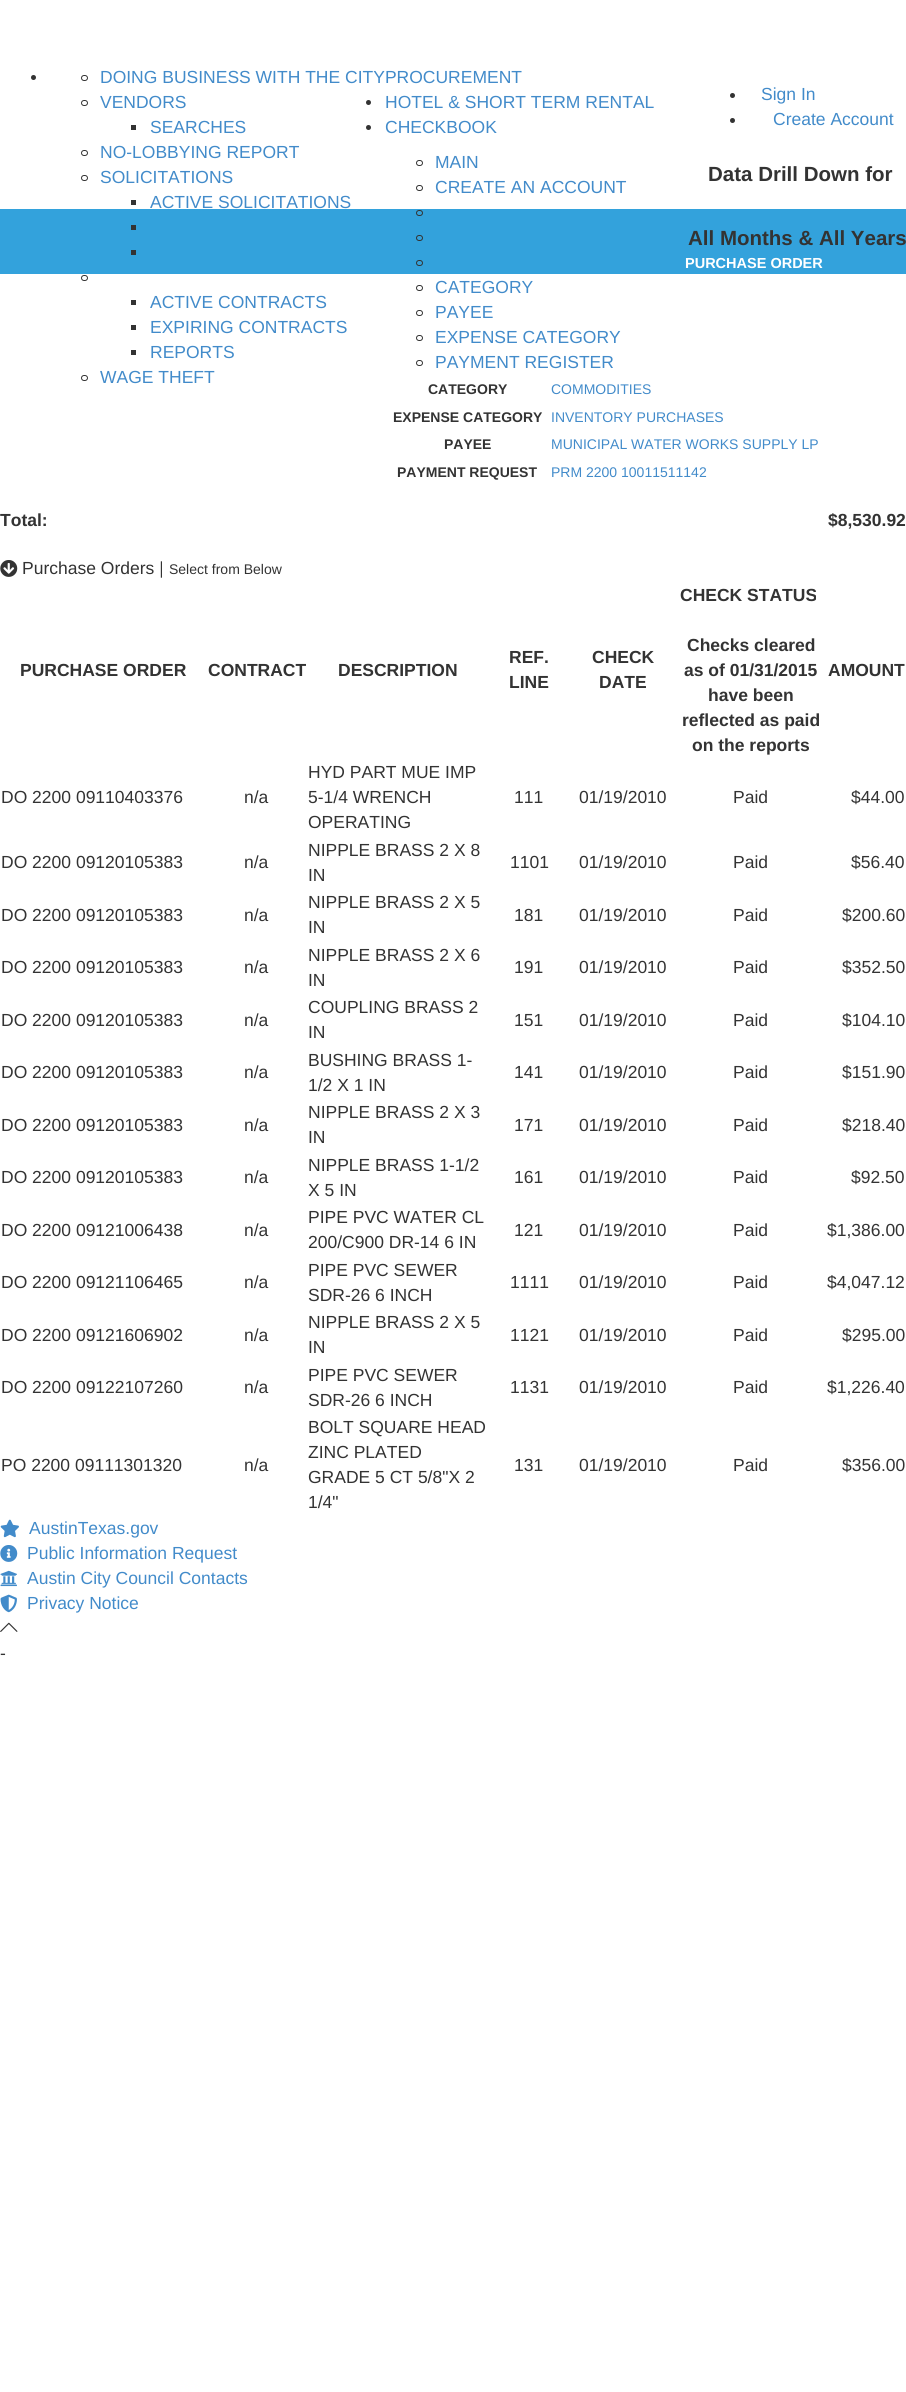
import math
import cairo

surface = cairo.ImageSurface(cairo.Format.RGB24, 906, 2392)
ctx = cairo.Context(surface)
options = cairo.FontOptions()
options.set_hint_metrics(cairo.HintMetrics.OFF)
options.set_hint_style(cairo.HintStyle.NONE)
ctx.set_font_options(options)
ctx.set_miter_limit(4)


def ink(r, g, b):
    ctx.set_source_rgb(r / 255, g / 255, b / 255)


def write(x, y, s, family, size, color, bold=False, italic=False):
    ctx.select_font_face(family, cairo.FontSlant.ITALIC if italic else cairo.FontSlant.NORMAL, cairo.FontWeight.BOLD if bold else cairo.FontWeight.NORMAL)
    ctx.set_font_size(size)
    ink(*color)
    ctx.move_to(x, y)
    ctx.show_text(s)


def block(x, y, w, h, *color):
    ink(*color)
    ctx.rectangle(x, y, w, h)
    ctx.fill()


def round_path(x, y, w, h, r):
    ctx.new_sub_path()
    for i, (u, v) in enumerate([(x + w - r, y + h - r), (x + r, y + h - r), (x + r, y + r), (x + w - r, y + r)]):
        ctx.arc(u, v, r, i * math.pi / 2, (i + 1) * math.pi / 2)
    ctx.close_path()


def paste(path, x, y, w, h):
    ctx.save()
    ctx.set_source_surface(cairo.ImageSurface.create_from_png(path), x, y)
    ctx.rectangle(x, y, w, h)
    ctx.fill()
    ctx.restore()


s1 = dict(family="Liberation Sans", size=17.5, color=(66, 139, 202))
s2 = dict(family="Liberation Sans", size=20.5, color=(51, 51, 51), bold=True)
s3 = dict(family="Liberation Sans", size=14.5, color=(255, 255, 255), bold=True)
s4 = dict(family="Liberation Sans", size=14, color=(51, 51, 51), bold=True)
s5 = dict(family="Liberation Sans", size=14, color=(66, 139, 202))
s6 = dict(family="Liberation Sans", size=17.5, color=(51, 51, 51), bold=True)
s7 = dict(family="Liberation Sans", size=17.5, color=(51, 51, 51))
s8 = dict(family="Liberation Sans", size=14, color=(51, 51, 51))

ink(255, 255, 255)
ctx.paint()
ink(51, 51, 51)
ctx.arc(33.5, 77.5, 2.5, 0, 2 * math.pi)
ctx.fill()
round_path(81.5, 75.5, 6, 5, 2.5)
ctx.set_line_width(1)
ctx.stroke()
write(100, 83, "DOING BUSINESS WITH THE CITYPROCUREMENT", **s1)
round_path(81.5, 100.5, 6, 5, 2.5)
ink(51, 51, 51)
ctx.stroke()
write(100, 108, "VENDORS", **s1)
block(131, 125, 5, 5, 51, 51, 51)
write(150, 133, "SEARCHES", **s1)
round_path(81.5, 150.5, 6, 5, 2.5)
ink(51, 51, 51)
ctx.stroke()
write(100, 158, "NO-LOBBYING REPORT", **s1)
round_path(81.5, 175.5, 6, 5, 2.5)
ink(51, 51, 51)
ctx.stroke()
write(100, 183, "SOLICITATIONS", **s1)
block(131, 200, 5, 5, 51, 51, 51)
write(150, 208, "ACTIVE SOLICITATIONS", **s1)
block(0, 209, 906, 65, 51, 162, 220)
block(131, 225, 5, 5, 51, 51, 51)
block(131, 250, 5, 5, 51, 51, 51)
round_path(81.5, 275.5, 6, 5, 2.5)
ctx.stroke()
block(131, 300, 5, 5, 51, 51, 51)
write(150, 308, "ACTIVE CONTRACTS", **s1)
block(131, 325, 5, 5, 51, 51, 51)
write(150, 333, "EXPIRING CONTRACTS", **s1)
block(131, 350, 5, 5, 51, 51, 51)
write(150, 358, "REPORTS", **s1)
round_path(81.5, 375.5, 6, 5, 2.5)
ink(51, 51, 51)
ctx.stroke()
write(100, 383, "WAGE THEFT", **s1)
ink(51, 51, 51)
ctx.new_path()
ctx.arc(368.5, 102.5, 2.5, 0, 2 * math.pi)
ctx.fill()
write(385, 108, "HOTEL & SHORT TERM RENTAL", **s1)
round_path(416.5, 160.5, 6, 5, 2.5)
ink(51, 51, 51)
ctx.stroke()
write(435, 168, "MAIN", **s1)
round_path(416.5, 185.5, 6, 5, 2.5)
ink(51, 51, 51)
ctx.stroke()
write(435, 193, "CREATE AN ACCOUNT", **s1)
round_path(416.5, 210.5, 6, 5, 2.5)
ink(51, 51, 51)
ctx.stroke()
ctx.arc(368.5, 127.5, 2.5, 0, 2 * math.pi)
ctx.fill()
write(385, 133, "CHECKBOOK", **s1)
round_path(416.5, 235.5, 6, 5, 2.5)
ink(51, 51, 51)
ctx.stroke()
round_path(416.5, 260.5, 6, 5, 2.5)
ctx.stroke()
round_path(416.5, 285.5, 6, 5, 2.5)
ctx.stroke()
write(435, 293, "CATEGORY", **s1)
round_path(416.5, 310.5, 6, 5, 2.5)
ink(51, 51, 51)
ctx.stroke()
write(435, 318, "PAYEE", **s1)
round_path(416.5, 335.5, 6, 5, 2.5)
ink(51, 51, 51)
ctx.stroke()
write(435, 343, "EXPENSE CATEGORY", **s1)
round_path(416.5, 360.5, 6, 5, 2.5)
ink(51, 51, 51)
ctx.stroke()
write(435, 368, "PAYMENT REGISTER", **s1)
ink(51, 51, 51)
ctx.new_path()
ctx.arc(732.5, 95.5, 2.5, 0, 2 * math.pi)
ctx.fill()
write(761, 100, "Sign In", **s1)
ink(51, 51, 51)
ctx.new_path()
ctx.arc(732.5, 120.5, 2.5, 0, 2 * math.pi)
ctx.fill()
write(773, 125, "Create Account", **s1)
write(708, 181, "Data Drill Down for", **s2)
write(688, 245, "All Months & All Years", **s2)
write(685, 268, "PURCHASE ORDER", **s3)
write(428, 394, "CATEGORY", **s4)
write(551, 394, "COMMODITIES", **s5)
write(393, 422, "EXPENSE CATEGORY", **s4)
write(551, 422, "INVENTORY PURCHASES", **s5)
write(444, 449, "PAYEE", **s4)
write(551, 449, "MUNICIPAL WATER WORKS SUPPLY LP", **s5)
write(397, 477, "PAYMENT REQUEST", **s4)
write(551, 477, "PRM 2200 10011511142", **s5)
write(0, 526, "Total:", **s6)
write(828, 526, "$8,530.92", **s6)
paste("pic1.png", 0, 560, 18, 17)
write(22, 574, "Purchase Orders |", **s7)
write(169, 574, "Select from Below", **s8)
write(20, 676, "PURCHASE ORDER", **s6)
write(208, 676, "CONTRACT", **s6)
write(338, 676, "DESCRIPTION", **s6)
write(509, 663, "REF.", **s6)
write(509, 688, "LINE", **s6)
write(592, 663, "CHECK", **s6)
write(599, 688, "DATE", **s6)
write(680, 601, "CHECK STATUS", **s6)
write(687, 651, "Checks cleared", **s6)
write(684, 676, "as of 01/31/2015", **s6)
write(708, 701, "have been", **s6)
write(682, 726, "reflected as paid", **s6)
write(692, 751, "on the reports", **s6)
write(828, 676, "AMOUNT", **s6)
write(1, 803, "DO 2200 09110403376", **s7)
write(244, 803, "n/a", **s7)
write(308, 778, "HYD PART MUE IMP", **s7)
write(308, 803, "5-1/4 WRENCH", **s7)
write(308, 828, "OPERATING", **s7)
write(514, 803, "111", **s7)
write(579, 803, "01/19/2010", **s7)
write(733, 803, "Paid", **s7)
write(851, 803, "$44.00", **s7)
write(1, 868, "DO 2200 09120105383", **s7)
write(244, 868, "n/a", **s7)
write(308, 856, "NIPPLE BRASS 2 X 8", **s7)
write(308, 881, "IN", **s7)
write(510, 868, "1101", **s7)
write(579, 868, "01/19/2010", **s7)
write(733, 868, "Paid", **s7)
write(851, 868, "$56.40", **s7)
write(1, 921, "DO 2200 09120105383", **s7)
write(244, 921, "n/a", **s7)
write(308, 908, "NIPPLE BRASS 2 X 5", **s7)
write(308, 933, "IN", **s7)
write(514, 921, "181", **s7)
write(579, 921, "01/19/2010", **s7)
write(733, 921, "Paid", **s7)
write(842, 921, "$200.60", **s7)
write(1, 973, "DO 2200 09120105383", **s7)
write(244, 973, "n/a", **s7)
write(308, 961, "NIPPLE BRASS 2 X 6", **s7)
write(308, 986, "IN", **s7)
write(514, 973, "191", **s7)
write(579, 973, "01/19/2010", **s7)
write(733, 973, "Paid", **s7)
write(842, 973, "$352.50", **s7)
write(1, 1026, "DO 2200 09120105383", **s7)
write(244, 1026, "n/a", **s7)
write(308, 1013, "COUPLING BRASS 2", **s7)
write(308, 1038, "IN", **s7)
write(514, 1026, "151", **s7)
write(579, 1026, "01/19/2010", **s7)
write(733, 1026, "Paid", **s7)
write(842, 1026, "$104.10", **s7)
write(1, 1078, "DO 2200 09120105383", **s7)
write(244, 1078, "n/a", **s7)
write(308, 1066, "BUSHING BRASS 1-", **s7)
write(308, 1091, "1/2 X 1 IN", **s7)
write(514, 1078, "141", **s7)
write(579, 1078, "01/19/2010", **s7)
write(733, 1078, "Paid", **s7)
write(842, 1078, "$151.90", **s7)
write(1, 1131, "DO 2200 09120105383", **s7)
write(244, 1131, "n/a", **s7)
write(308, 1118, "NIPPLE BRASS 2 X 3", **s7)
write(308, 1143, "IN", **s7)
write(514, 1131, "171", **s7)
write(579, 1131, "01/19/2010", **s7)
write(733, 1131, "Paid", **s7)
write(842, 1131, "$218.40", **s7)
write(1, 1183, "DO 2200 09120105383", **s7)
write(244, 1183, "n/a", **s7)
write(308, 1171, "NIPPLE BRASS 1-1/2", **s7)
write(308, 1196, "X 5 IN", **s7)
write(514, 1183, "161", **s7)
write(579, 1183, "01/19/2010", **s7)
write(733, 1183, "Paid", **s7)
write(851, 1183, "$92.50", **s7)
write(1, 1236, "DO 2200 09121006438", **s7)
write(244, 1236, "n/a", **s7)
write(308, 1223, "PIPE PVC WATER CL", **s7)
write(308, 1248, "200/C900 DR-14 6 IN", **s7)
write(514, 1236, "121", **s7)
write(579, 1236, "01/19/2010", **s7)
write(733, 1236, "Paid", **s7)
write(827, 1236, "$1,386.00", **s7)
write(1, 1288, "DO 2200 09121106465", **s7)
write(244, 1288, "n/a", **s7)
write(308, 1276, "PIPE PVC SEWER", **s7)
write(308, 1301, "SDR-26 6 INCH", **s7)
write(510, 1288, "1111", **s7)
write(579, 1288, "01/19/2010", **s7)
write(733, 1288, "Paid", **s7)
write(827, 1288, "$4,047.12", **s7)
write(1, 1341, "DO 2200 09121606902", **s7)
write(244, 1341, "n/a", **s7)
write(308, 1328, "NIPPLE BRASS 2 X 5", **s7)
write(308, 1353, "IN", **s7)
write(510, 1341, "1121", **s7)
write(579, 1341, "01/19/2010", **s7)
write(733, 1341, "Paid", **s7)
write(842, 1341, "$295.00", **s7)
write(1, 1393, "DO 2200 09122107260", **s7)
write(244, 1393, "n/a", **s7)
write(308, 1381, "PIPE PVC SEWER", **s7)
write(308, 1406, "SDR-26 6 INCH", **s7)
write(510, 1393, "1131", **s7)
write(579, 1393, "01/19/2010", **s7)
write(733, 1393, "Paid", **s7)
write(827, 1393, "$1,226.40", **s7)
write(1, 1471, "PO 2200 09111301320", **s7)
write(244, 1471, "n/a", **s7)
write(308, 1433, "BOLT SQUARE HEAD", **s7)
write(308, 1458, "ZINC PLATED", **s7)
write(308, 1483, "GRADE 5 CT 5/8\"X 2", **s7)
write(308, 1508, "1/4\"", **s7)
write(514, 1471, "131", **s7)
write(579, 1471, "01/19/2010", **s7)
write(733, 1471, "Paid", **s7)
write(842, 1471, "$356.00", **s7)
paste("pic2.png", 0, 1519, 19, 19)
write(29, 1534, "AustinTexas.gov", **s1)
paste("pic3.png", 0, 1545, 18, 17)
write(27, 1559, "Public Information Request", **s1)
paste("pic4.png", 0, 1570, 17, 17)
write(27, 1584, "Austin City Council Contacts", **s1)
paste("pic5.png", 0, 1594, 17, 19)
write(27, 1609, "Privacy Notice", **s1)
paste("pic6.png", 0, 1622, 18, 10)
write(0, 1659, "-", **s7)
surface.write_to_png("screenshot.png")
